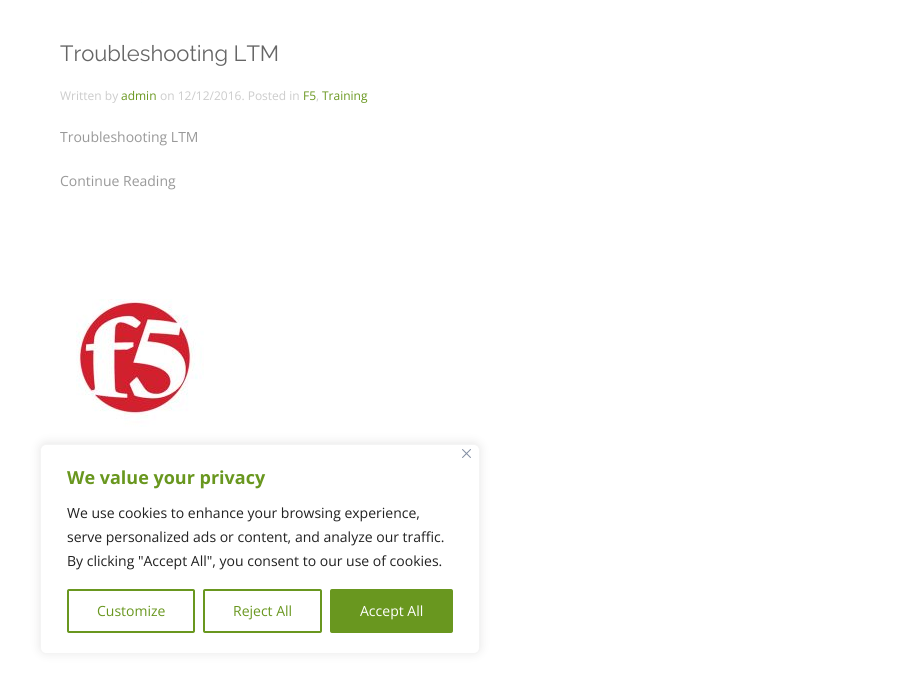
import math
import cairo

surface = cairo.ImageSurface(cairo.Format.RGB24, 916, 694)
ctx = cairo.Context(surface)
options = cairo.FontOptions()
options.set_hint_metrics(cairo.HintMetrics.OFF)
options.set_hint_style(cairo.HintStyle.NONE)
ctx.set_font_options(options)
ctx.set_miter_limit(4)


def ink(r, g, b):
    ctx.set_source_rgb(r / 255, g / 255, b / 255)


def write(x, y, s, family, size, color, bold=False, italic=False):
    ctx.select_font_face(family, cairo.FontSlant.ITALIC if italic else cairo.FontSlant.NORMAL, cairo.FontWeight.BOLD if bold else cairo.FontWeight.NORMAL)
    ctx.set_font_size(size)
    ink(*color)
    ctx.move_to(x, y)
    ctx.show_text(s)


def block(x, y, w, h, *color):
    ink(*color)
    ctx.rectangle(x, y, w, h)
    ctx.fill()


def round_path(x, y, w, h, r):
    ctx.new_sub_path()
    for i, (u, v) in enumerate([(x + w - r, y + h - r), (x + r, y + h - r), (x + r, y + r), (x + w - r, y + r)]):
        ctx.arc(u, v, r, i * math.pi / 2, (i + 1) * math.pi / 2)
    ctx.close_path()


def blur_box(x, y, w, h, r, blur, alpha):
    ctx.push_group_with_content(cairo.Content.ALPHA)
    ctx.set_operator(cairo.Operator.SOURCE)
    for i in range(15, -16, -2):
        e = blur * i / 6
        if min(w, h) + 2 * e > 0:
            ctx.set_source_rgba(0, 0, 0, alpha * math.erfc((i - 1) / 8.5) / 2)
            round_path(x - e, y - e, w + 2 * e, h + 2 * e, max(0, min(r + e + blur * .6, min(w, h) / 2 + e)))
            ctx.fill()
    ctx.mask(ctx.pop_group())


def paste(path, x, y, w, h):
    ctx.save()
    ctx.set_source_surface(cairo.ImageSurface.create_from_png(path), x, y)
    ctx.rectangle(x, y, w, h)
    ctx.fill()
    ctx.restore()


s1 = dict(family="Raleway", size=22, color=(102, 102, 102))
s2 = dict(family="Open Sans", size=12, color=(204, 204, 204))
s3 = dict(family="Open Sans", size=12, color=(105, 151, 31))
s4 = dict(family="Open Sans", size=14, color=(153, 153, 153))
s5 = dict(family="Open Sans", size=18, color=(105, 151, 31), bold=True)
s6 = dict(family="Open Sans", size=14, color=(33, 33, 33))
s7 = dict(family="Open Sans", size=14, color=(105, 151, 31))
s8 = dict(family="Open Sans", size=14, color=(255, 255, 255))

ink(255, 255, 255)
ctx.paint()
block(141, 2, 1, 1, 249, 255, 255)
write(60, 61, "Troubleshooting LTM", **s1)
write(60, 100, "Written by", **s2)
write(121, 100, "admin", **s3)
write(160, 100, "on 12/12/2016. Posted in", **s2)
write(303, 100, "F5", **s3)
write(316, 100, ",", **s2)
write(322, 100, "Training", **s3)
write(60, 142, "Troubleshooting LTM", **s4)
write(60, 186, "Continue Reading", **s4)
paste("pic1.png", 76, 299, 128, 128)
ink(172, 171, 171)
blur_box(40, 443, 440, 210, 6, 5, 0.3)
ink(255, 255, 255)
round_path(40.5, 444.5, 439, 209, 5.5)
ctx.fill_preserve()
ink(244, 244, 244)
ctx.set_line_width(1)
ctx.stroke()
paste("pic2.png", 462, 449, 9, 9)
write(67, 484, "We value your privacy", **s5)
write(67, 518, "We use cookies to enhance your browsing experience,", **s6)
write(67, 542, "serve personalized ads or content, and analyze our traffic.", **s6)
write(67, 566, "By clicking \"Accept All\", you consent to our use of cookies.", **s6)
round_path(68, 590, 126, 42, 1)
ink(105, 151, 31)
ctx.set_line_width(2)
ctx.stroke()
write(97, 616, "Customize", **s7)
round_path(204, 590, 117, 42, 1)
ctx.stroke()
write(233, 616, "Reject All", **s7)
round_path(331, 590, 121, 42, 1)
ctx.fill_preserve()
ctx.stroke()
write(360, 616, "Accept All", **s8)
surface.write_to_png("screenshot.png")
